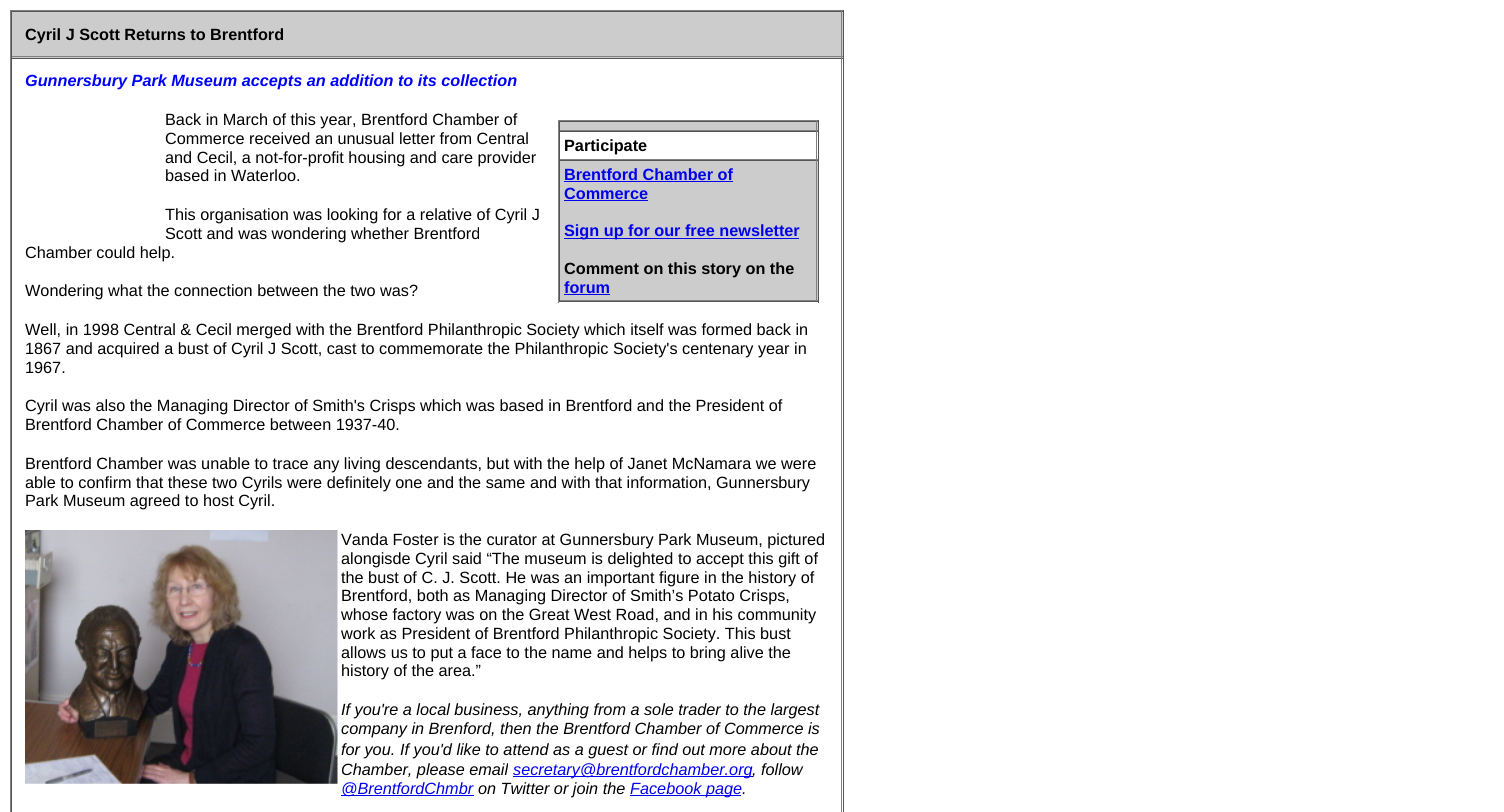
import math
import cairo

surface = cairo.ImageSurface(cairo.Format.RGB24, 1504, 812)
ctx = cairo.Context(surface)
options = cairo.FontOptions()
options.set_hint_metrics(cairo.HintMetrics.OFF)
options.set_hint_style(cairo.HintStyle.NONE)
ctx.set_font_options(options)
ctx.set_miter_limit(4)


def ink(r, g, b):
    ctx.set_source_rgb(r / 255, g / 255, b / 255)


def write(x, y, s, family, size, color, bold=False, italic=False):
    ctx.select_font_face(family, cairo.FontSlant.ITALIC if italic else cairo.FontSlant.NORMAL, cairo.FontWeight.BOLD if bold else cairo.FontWeight.NORMAL)
    ctx.set_font_size(size)
    ink(*color)
    ctx.move_to(x, y)
    ctx.show_text(s)


def block(x, y, w, h, *color):
    ink(*color)
    ctx.rectangle(x, y, w, h)
    ctx.fill()


def paste(path, x, y, w, h):
    ctx.save()
    ctx.set_source_surface(cairo.ImageSurface.create_from_png(path), x, y)
    ctx.rectangle(x, y, w, h)
    ctx.fill()
    ctx.restore()


s1 = dict(family="Liberation Sans", size=16.25, color=(0, 0, 0), bold=True)
s2 = dict(family="Liberation Sans", size=16.25, color=(0, 0, 255), bold=True, italic=True)
s3 = dict(family="Liberation Sans", size=16.25, color=(0, 0, 0))
s4 = dict(family="Liberation Sans", size=16.25, color=(0, 0, 238), bold=True)
s5 = dict(family="Liberation Sans", size=16.25, color=(0, 0, 0), italic=True)
s6 = dict(family="Liberation Sans", size=16.25, color=(0, 0, 238), italic=True)

ink(255, 255, 255)
ctx.paint()
block(10, 10, 834, 1, 128, 128, 128)
block(843, 10, 1, 802, 85, 85, 85)
block(10, 10, 1, 802, 128, 128, 128)
block(12, 12, 831, 46, 204, 204, 204)
block(11, 11, 832, 1, 85, 85, 85)
block(841, 11, 1, 47, 128, 128, 128)
block(11, 56, 832, 1, 128, 128, 128)
block(11, 11, 1, 47, 85, 85, 85)
write(25, 40, "Cyril J Scott Returns to Brentford", **s1)
block(11, 58, 832, 1, 85, 85, 85)
block(841, 58, 1, 754, 128, 128, 128)
block(11, 58, 1, 754, 85, 85, 85)
write(25, 86, "Gunnersbury Park Museum accepts an addition to its collection", **s2)
write(165, 125, "Back in March of this year, Brentford Chamber of", **s3)
write(165, 144, "Commerce received an unusual letter from Central", **s3)
write(165, 163, "and Cecil, a not-for-profit housing and care provider", **s3)
write(165, 181, "based in Waterloo.", **s3)
block(558, 120, 261, 1, 128, 128, 128)
block(818, 120, 1, 183, 85, 85, 85)
block(558, 301, 261, 1, 85, 85, 85)
block(558, 120, 1, 183, 128, 128, 128)
block(560, 122, 258, 8, 204, 204, 204)
block(559, 121, 259, 1, 85, 85, 85)
block(816, 121, 1, 10, 128, 128, 128)
block(559, 130, 259, 1, 128, 128, 128)
block(559, 121, 1, 10, 85, 85, 85)
block(559, 131, 259, 1, 85, 85, 85)
block(816, 131, 1, 29, 128, 128, 128)
block(559, 159, 259, 1, 128, 128, 128)
block(559, 131, 1, 29, 85, 85, 85)
write(564, 151, "Participate", **s1)
block(560, 161, 258, 139, 204, 204, 204)
block(559, 160, 259, 1, 85, 85, 85)
block(816, 160, 1, 141, 128, 128, 128)
block(559, 300, 259, 1, 128, 128, 128)
block(559, 160, 1, 141, 85, 85, 85)
write(564, 180, "Brentford Chamber of", **s4)
block(564, 181, 169, 1, 0, 0, 238)
write(564, 199, "Commerce", **s4)
block(564, 200, 84, 1, 0, 0, 238)
block(564, 238, 235, 1, 0, 0, 238)
write(564, 236, "Sign up for our free newsletter", **s4)
write(564, 274, "Comment on this story on the", **s1)
write(564, 293, "forum", **s4)
block(564, 294, 46, 1, 0, 0, 238)
write(165, 220, "This organisation was looking for a relative of Cyril J", **s3)
write(165, 239, "Scott and was wondering whether Brentford", **s3)
write(25, 258, "Chamber could help.", **s3)
write(25, 296, "Wondering what the connection between the two was?", **s3)
write(25, 335, "Well, in 1998 Central & Cecil merged with the Brentford Philanthropic Society which itself was formed back in", **s3)
write(25, 354, "1867 and acquired a bust of Cyril J Scott, cast to commemorate the Philanthropic Society's centenary year in", **s3)
write(25, 373, "1967.", **s3)
write(25, 411, "Cyril was also the Managing Director of Smith's Crisps which was based in Brentford and the President of", **s3)
write(25, 430, "Brentford Chamber of Commerce between 1937-40.", **s3)
write(25, 469, "Brentford Chamber was unable to trace any living descendants, but with the help of Janet McNamara we were", **s3)
write(25, 488, "able to confirm that these two Cyrils were definitely one and the same and with that information, Gunnersbury", **s3)
write(25, 506, "Park Museum agreed to host Cyril.", **s3)
paste("pic1.png", 25, 530, 313, 254)
write(341, 545, "Vanda Foster is the curator at Gunnersbury Park Museum, pictured", **s3)
write(341, 564, "alongisde Cyril said “The museum is delighted to accept this gift of", **s3)
write(341, 583, "the bust of C. J. Scott. He was an important figure in the history of", **s3)
write(341, 601, "Brentford, both as Managing Director of Smith’s Potato Crisps,", **s3)
write(341, 620, "whose factory was on the Great West Road, and in his community", **s3)
write(341, 639, "work as President of Brentford Philanthropic Society. This bust", **s3)
write(341, 658, "allows us to put a face to the name and helps to bring alive the", **s3)
write(341, 676, "history of the area.”", **s3)
write(341, 715, "If you're a local business, anything from a sole trader to the largest", **s5)
write(341, 734, "company in Brenford, then the Brentford Chamber of Commerce is", **s5)
write(341, 755, "for you.", **s5)
write(400, 755, "If you'd like to attend as a guest or find out more about the", **s5)
write(341, 775, "Chamber, please email", **s5)
block(513, 776, 240, 1, 0, 0, 238)
write(513, 775, "secretary@brentfordchamber.org", **s6)
write(752, 775, ", follow", **s5)
block(341, 795, 133, 1, 0, 0, 238)
write(341, 794, "@BrentfordChmbr", **s6)
write(478, 794, "on Twitter or join the", **s5)
block(630, 795, 111, 1, 0, 0, 238)
write(630, 794, "Facebook page", **s6)
write(742, 794, ".", **s5)
surface.write_to_png("screenshot.png")
